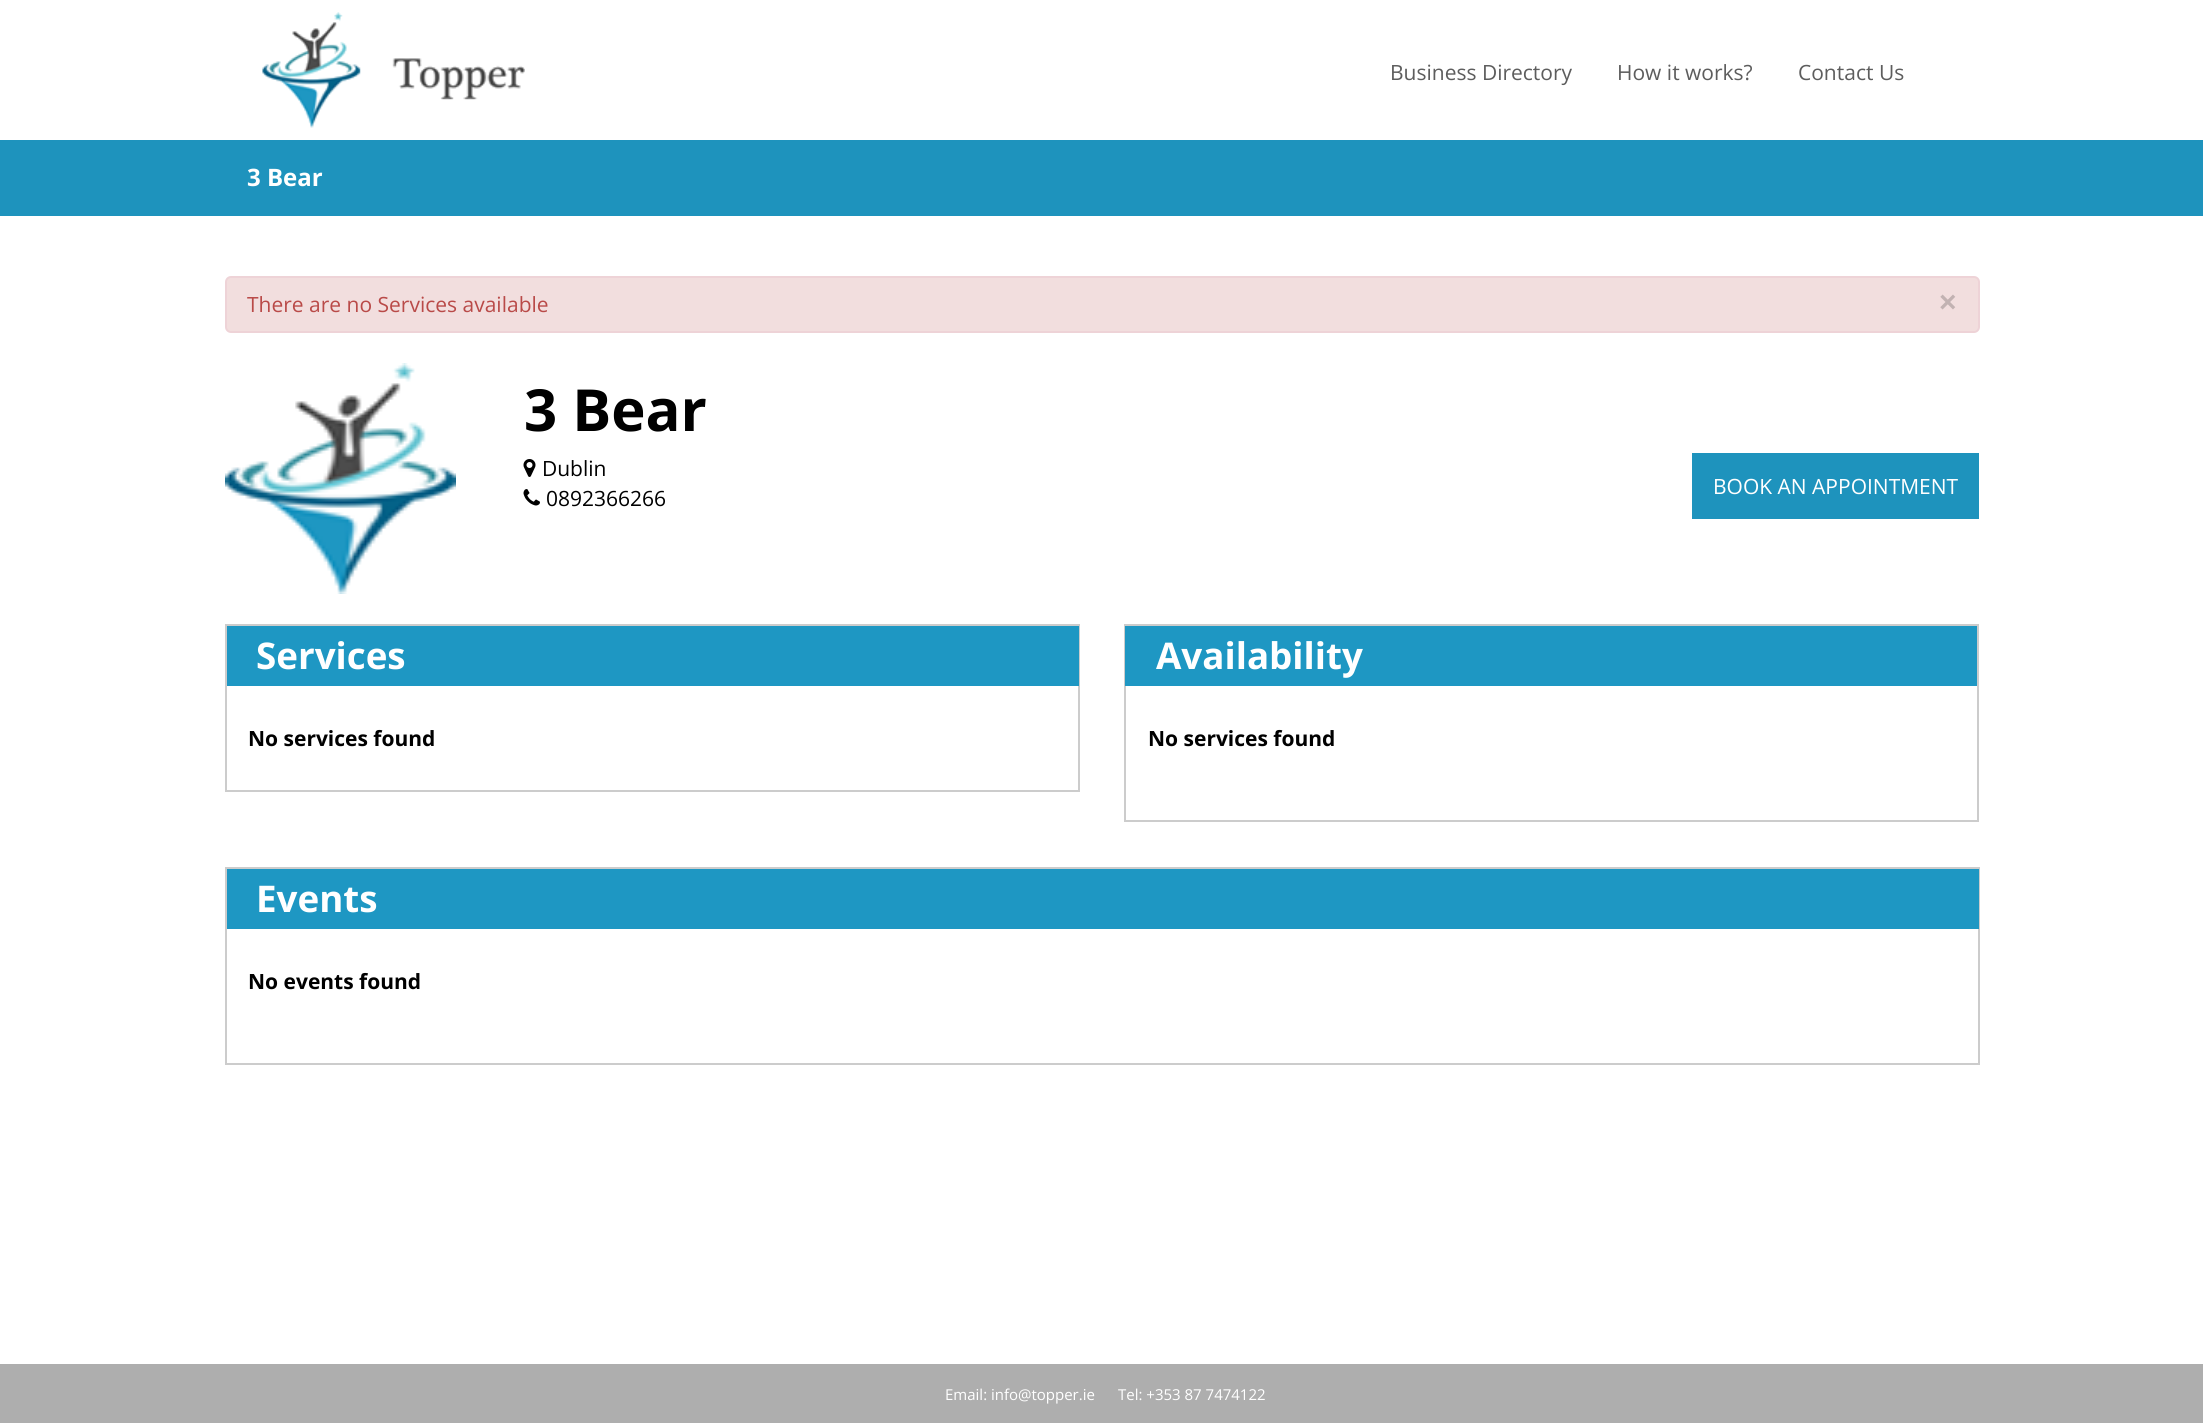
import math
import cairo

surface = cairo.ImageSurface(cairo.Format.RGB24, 2203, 1423)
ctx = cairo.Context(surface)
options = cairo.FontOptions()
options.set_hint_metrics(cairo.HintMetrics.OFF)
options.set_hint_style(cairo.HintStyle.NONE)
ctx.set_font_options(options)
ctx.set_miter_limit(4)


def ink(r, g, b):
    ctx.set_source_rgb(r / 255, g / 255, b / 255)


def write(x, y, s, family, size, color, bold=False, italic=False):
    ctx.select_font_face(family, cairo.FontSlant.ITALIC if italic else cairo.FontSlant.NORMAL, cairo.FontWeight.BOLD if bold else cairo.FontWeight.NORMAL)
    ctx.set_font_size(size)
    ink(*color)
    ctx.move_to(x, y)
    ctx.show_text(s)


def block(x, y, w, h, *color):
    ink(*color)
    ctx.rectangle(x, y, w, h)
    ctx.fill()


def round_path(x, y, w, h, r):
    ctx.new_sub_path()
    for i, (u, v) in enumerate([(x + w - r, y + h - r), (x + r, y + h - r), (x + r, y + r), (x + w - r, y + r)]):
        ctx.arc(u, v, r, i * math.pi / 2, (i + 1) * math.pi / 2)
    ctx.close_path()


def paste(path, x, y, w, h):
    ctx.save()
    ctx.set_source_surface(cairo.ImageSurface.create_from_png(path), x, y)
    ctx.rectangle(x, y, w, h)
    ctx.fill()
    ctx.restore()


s1 = dict(family="Open Sans", size=21, color=(93, 93, 93))
s2 = dict(family="Open Sans", size=24, color=(255, 255, 255), bold=True)
s3 = dict(family="Open Sans", size=21, color=(185, 74, 72))
s4 = dict(family="Liberation Sans", size=30, color=(194, 178, 178), bold=True)
s5 = dict(family="Open Sans", size=58, color=(0, 0, 0), bold=True)
s6 = dict(family="Open Sans", size=21, color=(0, 0, 0))
s7 = dict(family="Open Sans", size=21, color=(255, 255, 255))
s8 = dict(family="Open Sans", size=36.75, color=(255, 255, 255), bold=True)
s9 = dict(family="Open Sans", size=21, color=(0, 0, 0), bold=True)
s10 = dict(family="Open Sans", size=15, color=(255, 255, 255))

ink(255, 255, 255)
ctx.paint()
paste("pic1.png", 262, 12, 263, 116)
write(1390, 80, "Business Directory", **s1)
write(1617, 80, "How it works?", **s1)
write(1798, 80, "Contact Us", **s1)
block(0, 140, 2203, 76, 30, 147, 189)
write(247, 186, "3 Bear", **s2)
ink(242, 222, 222)
round_path(226, 277, 1753, 55, 5)
ctx.fill_preserve()
ink(238, 211, 215)
ctx.stroke()
write(247, 312, "There are no Services available", **s3)
write(1939, 312, "×", **s4)
paste("pic2.png", 225, 363, 231, 231)
write(524, 431, "3 Bear", **s5)
paste("pic3.png", 523, 459, 13, 18)
write(542, 476, "Dublin", **s6)
paste("pic4.png", 523, 489, 17, 17)
write(546, 506, "0892366266", **s6)
block(1692, 453, 287, 66, 30, 147, 189)
write(1713, 494, "BOOK AN APPOINTMENT", **s7)
ctx.rectangle(226, 625, 853, 166)
ink(204, 204, 204)
ctx.stroke()
block(227, 626, 852, 60, 30, 151, 195)
write(256, 669, "Services", **s8)
write(248, 746, "No services found", **s9)
ctx.rectangle(1125, 625, 853, 196)
ink(204, 204, 204)
ctx.stroke()
block(1125, 626, 852, 60, 30, 151, 195)
write(1156, 669, "Availability", **s8)
write(1148, 746, "No services found", **s9)
ctx.rectangle(226, 868, 1753, 196)
ink(204, 204, 204)
ctx.stroke()
block(227, 869, 1752, 60, 30, 151, 195)
write(256, 912, "Events", **s8)
write(248, 989, "No events found", **s9)
block(0, 1364, 2203, 59, 174, 174, 174)
write(945, 1400, "Email: info@topper.ie", **s10)
write(1118, 1400, "Tel: +353 87 7474122", **s10)
surface.write_to_png("screenshot.png")
